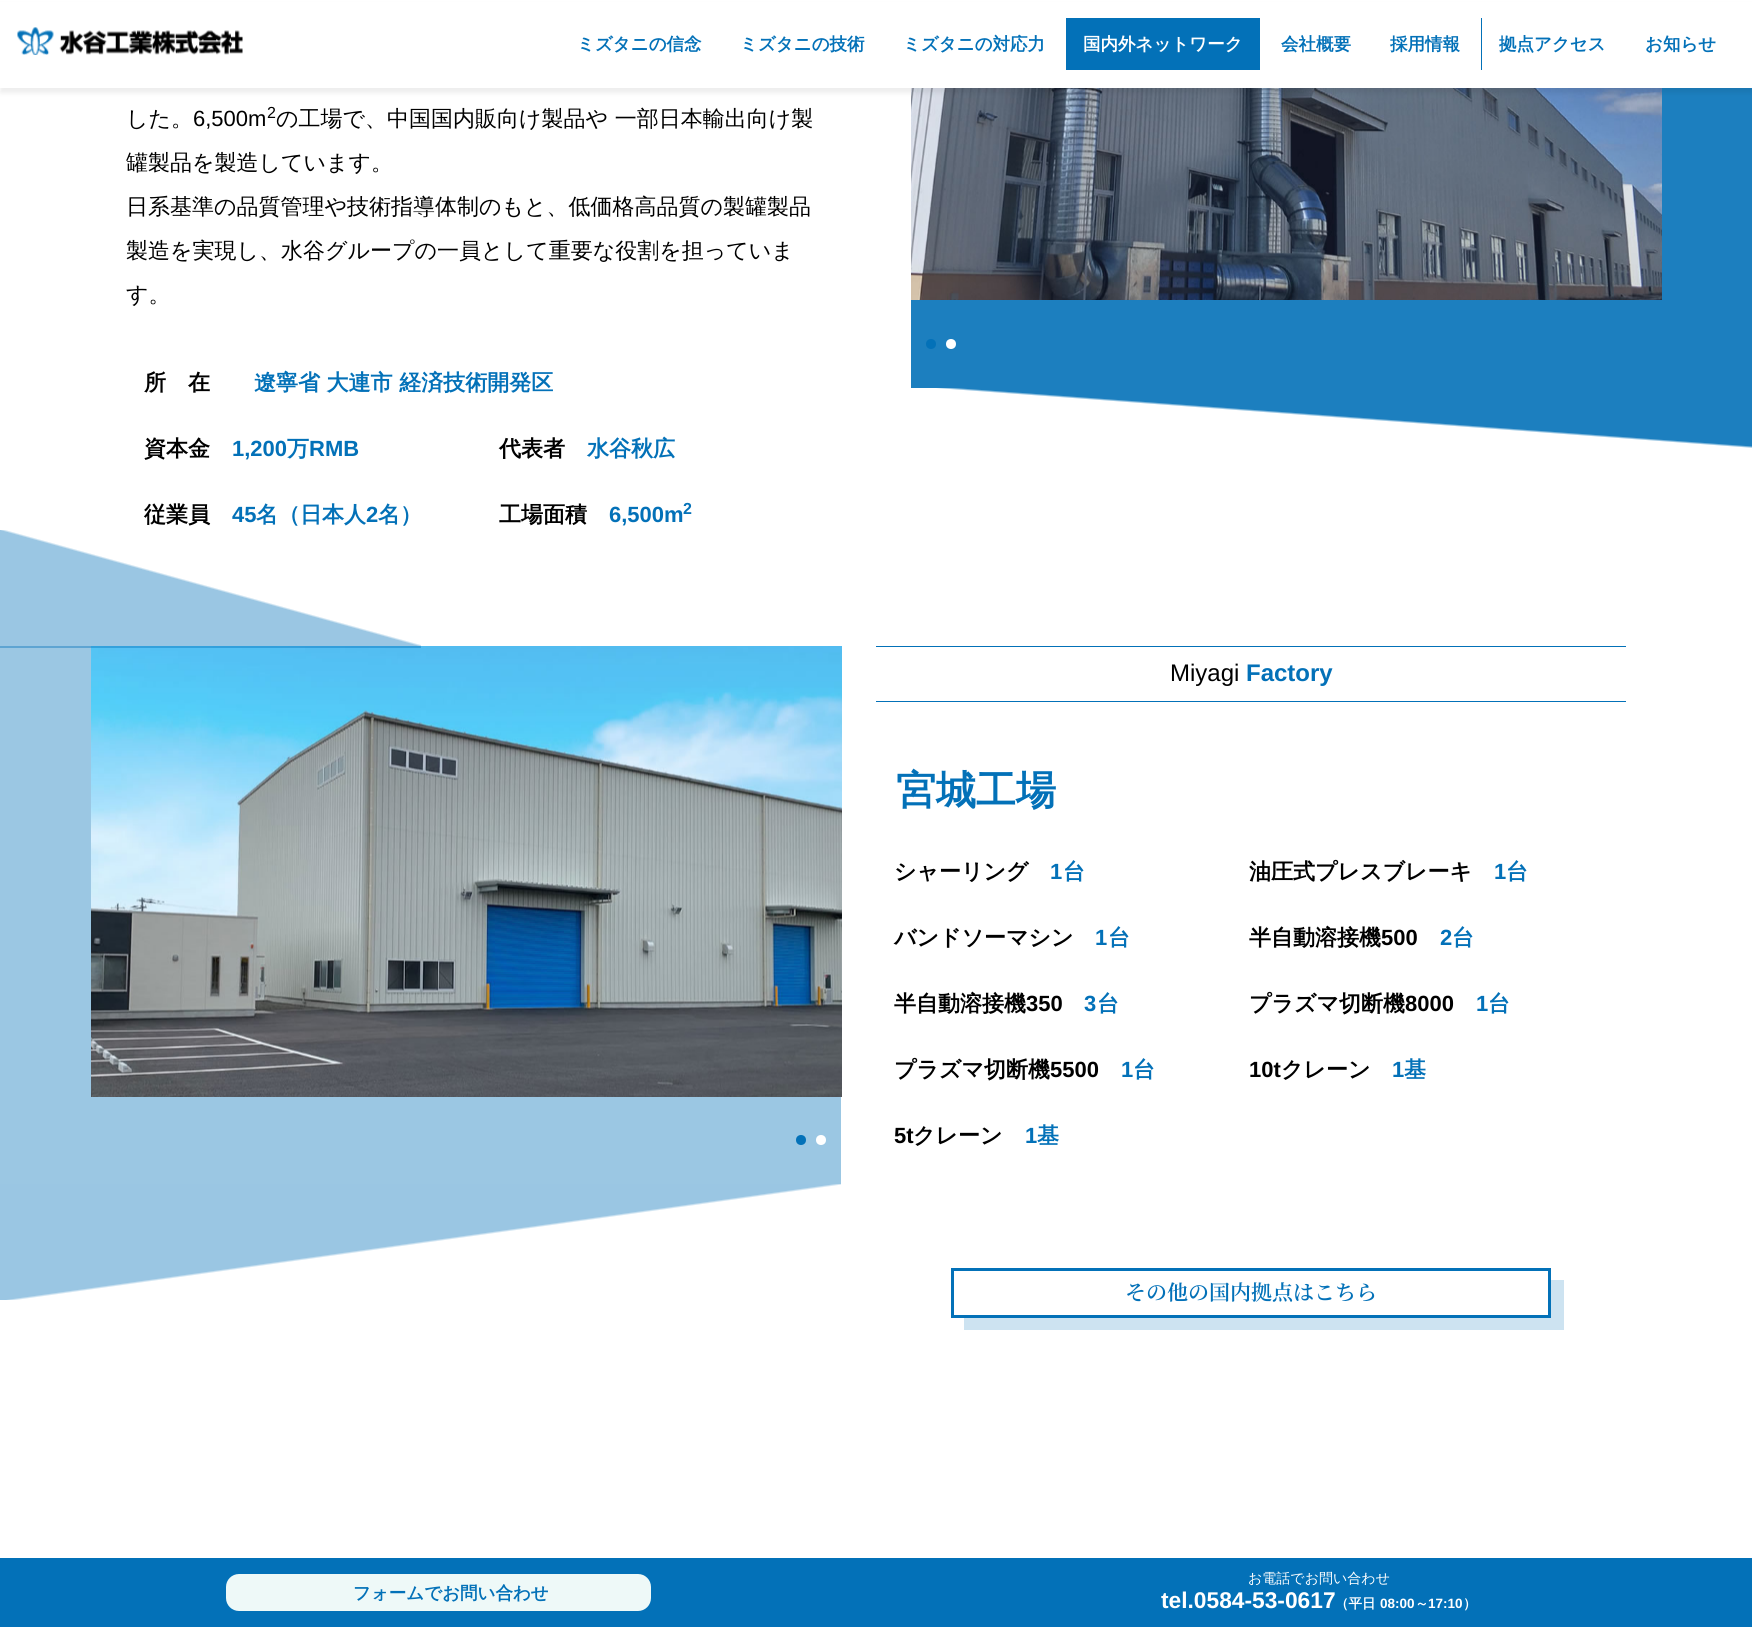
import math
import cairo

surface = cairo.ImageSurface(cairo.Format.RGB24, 1752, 1627)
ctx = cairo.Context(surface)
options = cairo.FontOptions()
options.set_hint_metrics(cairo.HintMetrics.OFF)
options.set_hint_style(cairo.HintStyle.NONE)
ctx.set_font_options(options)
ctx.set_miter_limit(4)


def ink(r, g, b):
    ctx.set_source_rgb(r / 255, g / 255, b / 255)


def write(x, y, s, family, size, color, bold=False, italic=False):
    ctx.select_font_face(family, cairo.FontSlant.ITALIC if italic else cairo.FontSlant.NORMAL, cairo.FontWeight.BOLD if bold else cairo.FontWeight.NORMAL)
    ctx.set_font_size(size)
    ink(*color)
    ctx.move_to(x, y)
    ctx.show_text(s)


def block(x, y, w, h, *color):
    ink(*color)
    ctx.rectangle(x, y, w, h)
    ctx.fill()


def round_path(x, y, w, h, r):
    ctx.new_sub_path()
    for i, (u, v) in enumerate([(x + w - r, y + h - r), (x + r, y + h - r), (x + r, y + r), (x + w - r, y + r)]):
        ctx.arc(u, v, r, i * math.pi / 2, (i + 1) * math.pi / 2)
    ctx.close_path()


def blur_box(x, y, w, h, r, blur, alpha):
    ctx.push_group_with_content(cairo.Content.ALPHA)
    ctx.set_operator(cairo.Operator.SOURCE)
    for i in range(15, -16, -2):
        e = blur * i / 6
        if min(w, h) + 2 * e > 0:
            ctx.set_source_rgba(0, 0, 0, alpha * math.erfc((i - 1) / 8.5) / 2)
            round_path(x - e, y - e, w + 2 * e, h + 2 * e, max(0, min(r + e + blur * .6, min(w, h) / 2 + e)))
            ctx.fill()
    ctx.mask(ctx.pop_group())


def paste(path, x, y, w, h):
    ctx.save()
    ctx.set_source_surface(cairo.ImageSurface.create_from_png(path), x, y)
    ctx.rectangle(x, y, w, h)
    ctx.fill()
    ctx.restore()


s1 = dict(family="WenQuanYi Zen Hei", size=17.5, color=(3, 113, 184), bold=True)
s2 = dict(family="WenQuanYi Zen Hei", size=17.5, color=(255, 255, 255), bold=True)
s3 = dict(family="WenQuanYi Zen Hei Medium", size=22, color=(0, 0, 0))
s4 = dict(family="Liberation Sans", size=22, color=(0, 0, 0))
s5 = dict(family="Liberation Sans", size=16, color=(0, 0, 0))
s6 = dict(family="WenQuanYi Zen Hei", size=22, color=(0, 0, 0), bold=True)
s7 = dict(family="WenQuanYi Zen Hei", size=22, color=(3, 113, 184), bold=True)
s8 = dict(family="Liberation Sans", size=22, color=(3, 113, 184), bold=True)
s9 = dict(family="Liberation Sans", size=16, color=(3, 113, 184), bold=True)
s10 = dict(family="Liberation Sans", size=24, color=(0, 0, 0))
s11 = dict(family="Liberation Sans", size=24, color=(3, 113, 184), bold=True)
s12 = dict(family="WenQuanYi Zen Hei", size=40, color=(3, 113, 184), bold=True)
s13 = dict(family="Liberation Sans", size=22, color=(0, 0, 0), bold=True)
s14 = dict(family="Noto Serif JP SemiBold", size=21, color=(3, 113, 184))
s15 = dict(family="WenQuanYi Zen Hei Medium", size=14, color=(255, 255, 255))
s16 = dict(family="Liberation Sans", size=22.75, color=(255, 255, 255), bold=True)
s17 = dict(family="WenQuanYi Zen Hei", size=13.5, color=(255, 255, 255), bold=True)
s18 = dict(family="Liberation Sans", size=13.5, color=(255, 255, 255), bold=True)

ink(255, 255, 255)
ctx.paint()
block(911, 88, 841, 300, 28, 127, 191)
paste("pic2.png", 911, 88, 751, 212)
ink(0, 0, 0)
blur_box(0, 5, 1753, 88, 0, 2.5, 0.07)
block(0, 2, 1752, 86, 255, 255, 255)
paste("pic1.png", 17, 27, 226, 28)
write(577, 50, "ミズタニの信念", **s1)
write(740, 50, "ミズタニの技術", **s1)
write(903, 50, "ミズタニの対応力", **s1)
block(1066, 18, 194, 52, 3, 113, 184)
write(1083, 50, "国内外ネットワーク", **s2)
write(1281, 50, "会社概要", **s1)
write(1390, 50, "採用情報", **s1)
block(1481, 18, 1, 52, 3, 113, 184)
write(1499, 50, "拠点アクセス", **s1)
write(1645, 50, "お知らせ", **s1)
write(126, 126, "した。", **s3)
write(193, 126, "6,500m", **s4)
write(267, 118, "2", **s5)
write(276, 126, "の工場で、中国国内販向け製品や 一部日本輸出向け製", **s3)
write(126, 170, "罐製品を製造しています。", **s3)
write(126, 214, "日系基準の品質管理や技術指導体制のもと、低価格高品質の製罐製品", **s3)
write(126, 258, "製造を実現し、水谷グループの一員として重要な役割を担っていま", **s3)
write(126, 302, "す。", **s3)
write(144, 390, "所　在", **s6)
write(254, 390, "遼寧省 大連市 経済技術開発区", **s7)
write(144, 456, "資本金", **s6)
write(232, 456, "1,200", **s8)
write(287, 456, "万", **s7)
write(309, 456, "RMB", **s8)
write(499, 456, "代表者", **s6)
write(587, 456, "水谷秋広", **s7)
write(144, 522, "従業員", **s6)
write(232, 522, "45", **s8)
write(256, 522, "名（日本人", **s7)
write(366, 522, "2", **s8)
write(378, 522, "名）", **s7)
write(499, 522, "工場面積", **s6)
write(609, 522, "6,500m", **s8)
write(683, 514, "2", **s9)
ctx.new_path()
ctx.arc(931, 344, 5, 0, 2 * math.pi)
ctx.fill()
ink(255, 255, 255)
ctx.arc(951, 344, 5, 0, 2 * math.pi)
ctx.fill()
gradient = cairo.LinearGradient(1744, 562, 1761, 330)
gradient.add_color_stop_rgba(0.49, 1, 1, 1, 1)
gradient.add_color_stop_rgba(0.5, 0.11, 0.498, 0.749, 1)
ctx.set_source(gradient)
ctx.rectangle(936, 388, 816, 60)
ctx.fill()
block(0, 646, 841, 538, 155, 199, 227)
paste("pic3.png", 91, 646, 751, 451)
gradient = cairo.LinearGradient(240, 480, 180, 697)
gradient.add_color_stop_rgba(0.49, 0.012, 0.443, 0.722, 0)
gradient.add_color_stop_rgba(0.5, 0.012, 0.443, 0.722, 0.4)
ctx.set_source(gradient)
ctx.rectangle(0, 530, 421, 118)
ctx.fill()
ink(3, 113, 184)
ctx.arc(801, 1140, 5, 0, 2 * math.pi)
ctx.fill()
ink(255, 255, 255)
ctx.arc(821, 1140, 5, 0, 2 * math.pi)
ctx.fill()
gradient = cairo.LinearGradient(437, 1356, 405, 1127)
gradient.add_color_stop_rgba(0.49, 1, 1, 1, 1)
gradient.add_color_stop_rgba(0.5, 0.604, 0.776, 0.89, 1)
ctx.set_source(gradient)
ctx.rectangle(0, 1184, 841, 116)
ctx.fill()
block(876, 646, 750, 1, 3, 113, 184)
block(876, 701, 750, 1, 3, 113, 184)
write(1170, 681, "Miyagi", **s10)
write(1246, 681, "Factory", **s11)
write(896, 804, "宮城工場", **s12)
write(894, 879, "シャーリング", **s6)
write(1050, 879, "1", **s8)
write(1063, 879, "台", **s7)
write(1249, 879, "油圧式プレスブレーキ", **s6)
write(1494, 879, "1", **s8)
write(1506, 879, "台", **s7)
write(894, 945, "バンドソーマシン", **s6)
write(1095, 945, "1", **s8)
write(1108, 945, "台", **s7)
write(1249, 945, "半自動溶接機", **s6)
write(1381, 945, "500", **s13)
write(1440, 945, "2", **s8)
write(1452, 945, "台", **s7)
write(894, 1011, "半自動溶接機", **s6)
write(1026, 1011, "350", **s13)
write(1084, 1011, "3", **s8)
write(1097, 1011, "台", **s7)
write(1249, 1011, "プラズマ切断機", **s6)
write(1405, 1011, "8000", **s13)
write(1476, 1011, "1", **s8)
write(1488, 1011, "台", **s7)
write(894, 1077, "プラズマ切断機", **s6)
write(1050, 1077, "5500", **s13)
write(1121, 1077, "1", **s8)
write(1133, 1077, "台", **s7)
write(1249, 1077, "10t", **s13)
write(1281, 1077, "クレーン", **s6)
write(1392, 1077, "1", **s8)
write(1404, 1077, "基", **s7)
write(894, 1143, "5t", **s13)
write(913, 1143, "クレーン", **s6)
write(1025, 1143, "1", **s8)
write(1037, 1143, "基", **s7)
ink(205, 227, 241)
ctx.new_path()
ctx.move_to(964, 1318)
ctx.line_to(964, 1330)
ctx.line_to(1564, 1330)
ctx.line_to(1564, 1280)
ctx.line_to(1551, 1280)
ctx.line_to(1551, 1318)
ctx.close_path()
ctx.fill()
ctx.rectangle(952.5, 1269.5, 597, 47)
ink(3, 113, 184)
ctx.set_line_width(3)
ctx.stroke()
write(1125, 1300, "その他の国内拠点はこちら", **s14)
block(0, 1558, 1752, 69, 3, 113, 184)
ink(238, 249, 248)
round_path(226, 1574, 425, 37, 13)
ctx.fill()
write(353, 1599, "フォームでお問い合わせ", **s1)
write(1248, 1583, "お電話でお問い合わせ", **s15)
write(1161, 1608, "tel.0584-53-0617", **s16)
write(1335, 1608, "（平日", **s17)
write(1380, 1608, "08:00", **s18)
write(1415, 1608, "～", **s17)
write(1428, 1608, "17:10", **s18)
write(1463, 1608, "）", **s17)
surface.write_to_png("screenshot.png")
